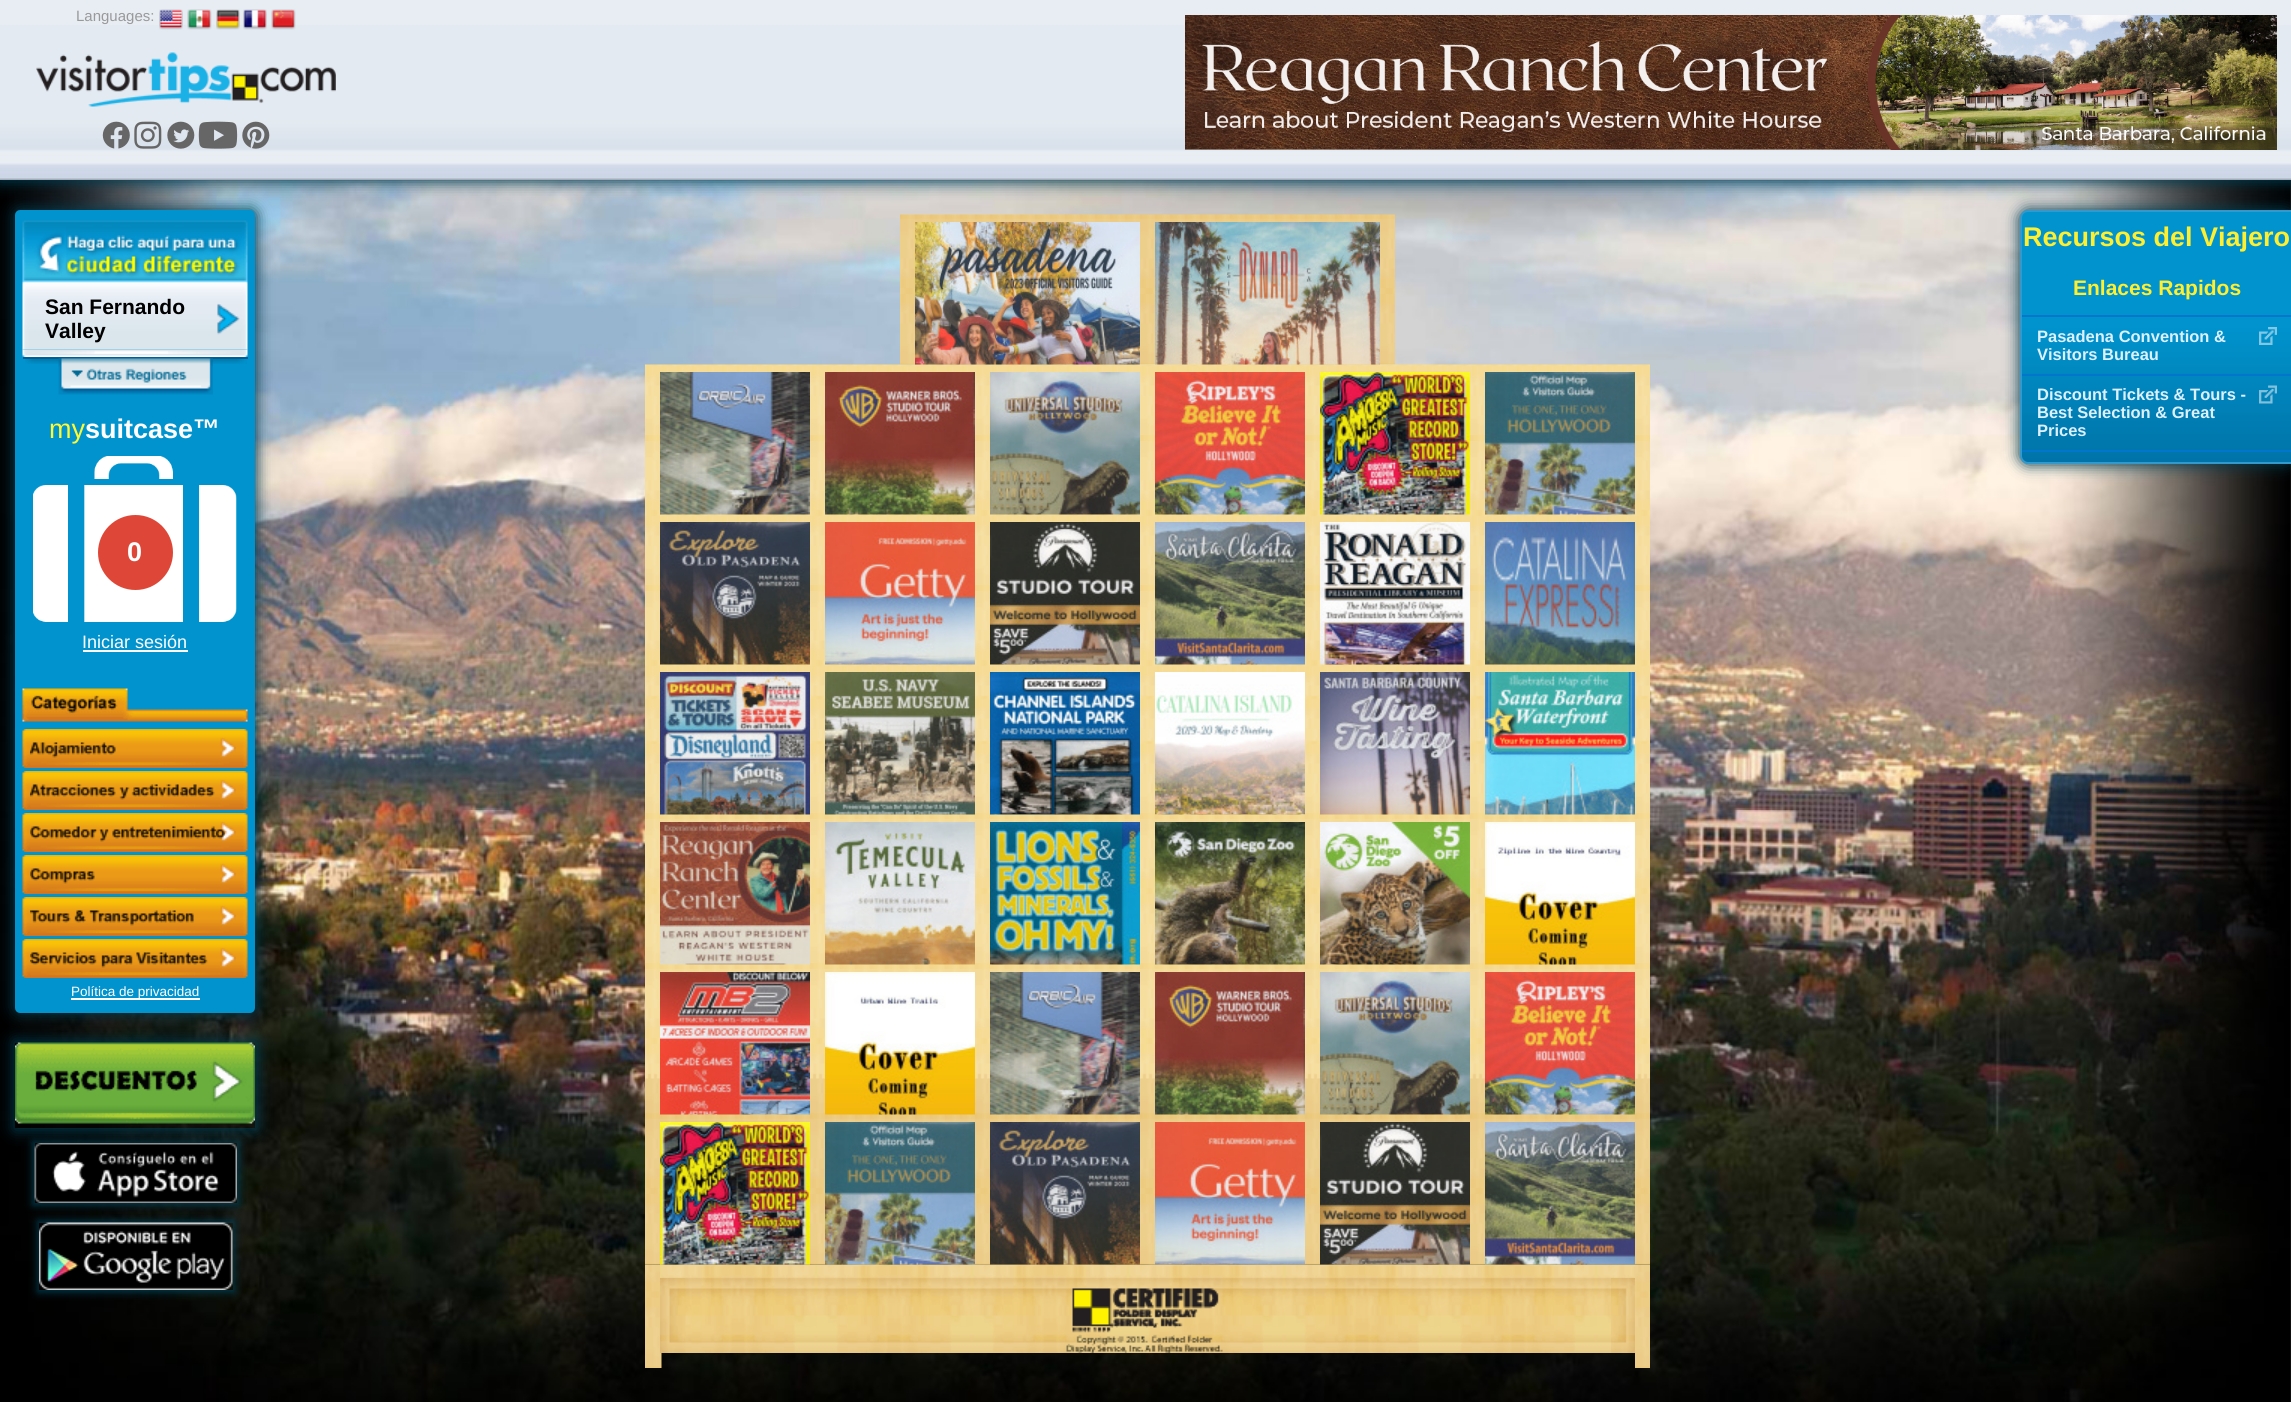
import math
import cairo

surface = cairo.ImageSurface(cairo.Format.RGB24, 2291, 1402)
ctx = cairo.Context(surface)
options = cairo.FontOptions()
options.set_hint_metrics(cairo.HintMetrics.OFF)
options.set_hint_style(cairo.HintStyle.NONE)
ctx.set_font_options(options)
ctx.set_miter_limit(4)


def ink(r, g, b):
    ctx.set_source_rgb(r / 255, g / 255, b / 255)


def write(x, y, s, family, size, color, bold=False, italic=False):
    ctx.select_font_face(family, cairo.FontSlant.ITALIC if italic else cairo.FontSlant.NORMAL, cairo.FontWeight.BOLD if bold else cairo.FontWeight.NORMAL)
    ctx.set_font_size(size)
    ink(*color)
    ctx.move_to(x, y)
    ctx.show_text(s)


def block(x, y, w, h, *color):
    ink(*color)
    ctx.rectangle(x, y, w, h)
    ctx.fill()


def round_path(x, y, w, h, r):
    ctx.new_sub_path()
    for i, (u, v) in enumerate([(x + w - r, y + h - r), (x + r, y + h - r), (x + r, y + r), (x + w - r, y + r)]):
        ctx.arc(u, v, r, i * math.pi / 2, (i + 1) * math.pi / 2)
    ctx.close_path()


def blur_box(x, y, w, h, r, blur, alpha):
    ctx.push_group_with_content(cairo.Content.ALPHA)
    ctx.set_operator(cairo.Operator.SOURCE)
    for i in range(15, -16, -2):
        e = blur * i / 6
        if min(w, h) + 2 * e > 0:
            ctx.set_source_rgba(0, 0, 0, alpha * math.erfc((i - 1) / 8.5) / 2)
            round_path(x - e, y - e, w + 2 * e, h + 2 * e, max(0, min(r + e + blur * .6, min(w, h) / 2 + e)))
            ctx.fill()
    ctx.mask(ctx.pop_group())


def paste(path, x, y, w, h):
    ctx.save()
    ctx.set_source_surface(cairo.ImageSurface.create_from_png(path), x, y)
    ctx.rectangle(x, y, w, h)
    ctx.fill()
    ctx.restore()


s1 = dict(family="Liberation Sans", size=15, color=(153, 153, 153))
s2 = dict(family="Liberation Sans", size=21, color=(0, 0, 0), bold=True)
s3 = dict(family="Liberation Sans", size=27, color=(255, 248, 53))
s4 = dict(family="Liberation Sans", size=27, color=(255, 255, 255), bold=True)
s5 = dict(family="Liberation Sans", size=18, color=(255, 255, 255))
s6 = dict(family="Liberation Sans", size=13.5, color=(255, 255, 255))
s7 = dict(family="Liberation Sans", size=27, color=(254, 239, 50), bold=True)
s8 = dict(family="Liberation Sans", size=21, color=(254, 239, 50), bold=True)
s9 = dict(family="Liberation Sans", size=16.5, color=(221, 240, 255), bold=True)

ink(255, 255, 255)
ctx.paint()
paste("pic14.png", 0, 180, 2291, 1222)
ink(0, 60, 80)
blur_box(-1, -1, 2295, 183, 0, 7.5, 1)
block(0, 0, 2291, 25, 232, 237, 243)
paste("pic1.png", 0, 25, 2291, 155)
write(76, 21, "Languages:", **s1)
paste("pic2.png", 159, 9, 24, 21)
paste("pic3.png", 187, 9, 25, 21)
paste("pic4.png", 216, 9, 24, 21)
paste("pic5.png", 243, 9, 24, 21)
paste("pic6.png", 271, 9, 25, 21)
paste("pic7.png", 1185, 15, 1092, 135)
paste("pic8.png", 36, 52, 300, 55)
paste("pic9.png", 102, 121, 28, 28)
paste("pic10.png", 134, 121, 28, 28)
paste("pic11.png", 167, 121, 28, 28)
paste("pic12.png", 198, 121, 40, 28)
paste("pic13.png", 242, 121, 28, 28)
ink(0, 60, 80)
blur_box(14, 209, 243, 805, 6, 7.5, 1)
ink(1, 147, 206)
round_path(16.5, 211.5, 237, 800, 3.5)
ctx.fill_preserve()
ctx.set_line_width(3)
ctx.stroke()
paste("pic15.png", 22, 349, 226, 8)
paste("pic16.png", 22, 220, 226, 130)
paste("pic17.png", 217, 303, 23, 32)
write(45, 314, "San Fernando", **s2)
write(45, 338, "Valley", **s2)
paste("pic18.png", 25, 359, 222, 5)
block(23, 357, 225, 2, 0, 94, 151)
paste("pic19.png", 58, 358, 155, 37)
write(49, 438, "my", **s3)
write(85, 438, "suitcase™", **s4)
paste("pic20.png", 33, 456, 204, 166)
ink(222, 71, 56)
ctx.arc(135.5, 552.5, 37.5, 0, 2 * math.pi)
ctx.fill()
write(127, 561, "0", **s4)
write(82, 648, "Iniciar sesión", **s5)
block(83, 650, 105, 2, 255, 255, 255)
paste("pic21.png", 22, 688, 226, 34)
paste("pic22.png", 22, 729, 226, 39)
paste("pic23.png", 30, 742, 86, 16)
paste("pic22.png", 22, 771, 226, 39)
paste("pic24.png", 30, 784, 185, 16)
paste("pic22.png", 22, 813, 226, 39)
paste("pic25.png", 30, 826, 195, 16)
paste("pic22.png", 22, 855, 226, 39)
paste("pic26.png", 30, 868, 65, 16)
paste("pic22.png", 22, 897, 226, 39)
paste("pic27.png", 30, 910, 164, 16)
paste("pic22.png", 22, 939, 226, 39)
paste("pic28.png", 30, 952, 178, 16)
block(71, 998, 129, 2, 255, 255, 255)
write(71, 996, "Política de privacidad", **s6)
ctx.save()
ctx.set_fill_rule(cairo.FillRule.EVEN_ODD)
ctx.new_path()
ctx.move_to(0, 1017)
ctx.line_to(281, 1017)
ctx.line_to(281, 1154)
ctx.line_to(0, 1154)
ctx.close_path()
ctx.move_to(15, 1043)
ctx.line_to(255, 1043)
ctx.line_to(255, 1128)
ctx.line_to(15, 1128)
ctx.close_path()
ctx.clip()
ink(0, 60, 80)
blur_box(14, 1041, 243, 89, 0, 7.5, 1)
ctx.restore()
paste("pic29.png", 15, 1042, 240, 82)
ctx.save()
ctx.set_fill_rule(cairo.FillRule.EVEN_ODD)
ctx.new_path()
ctx.move_to(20, 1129)
ctx.line_to(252, 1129)
ctx.line_to(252, 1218)
ctx.line_to(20, 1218)
ctx.close_path()
ctx.move_to(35, 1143)
ctx.line_to(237, 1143)
ctx.line_to(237, 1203)
ctx.line_to(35, 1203)
ctx.close_path()
ctx.clip()
ink(0, 60, 80)
blur_box(33, 1142, 206, 63, 0, 4, 1)
ctx.restore()
paste("pic30.png", 34, 1143, 203, 60)
ctx.save()
ctx.set_fill_rule(cairo.FillRule.EVEN_ODD)
ctx.new_path()
ctx.move_to(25, 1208)
ctx.line_to(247, 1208)
ctx.line_to(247, 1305)
ctx.line_to(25, 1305)
ctx.close_path()
ctx.move_to(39, 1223)
ctx.line_to(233, 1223)
ctx.line_to(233, 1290)
ctx.line_to(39, 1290)
ctx.close_path()
ctx.clip()
ink(0, 60, 80)
blur_box(38, 1221, 196, 71, 0, 4, 1)
ctx.restore()
paste("pic31.png", 39, 1222, 194, 68)
paste("pic32.png", 900, 214, 495, 151)
paste("pic35.png", 645, 364, 1005, 901)
paste("pic33.png", 915, 222, 225, 143)
paste("pic34.png", 1155, 222, 225, 143)
paste("pic36.png", 660, 372, 150, 143)
paste("pic37.png", 825, 372, 150, 143)
paste("pic38.png", 990, 372, 150, 143)
paste("pic39.png", 1155, 372, 150, 143)
paste("pic40.png", 1320, 372, 150, 143)
paste("pic41.png", 1485, 372, 150, 143)
paste("pic42.png", 660, 522, 150, 143)
paste("pic43.png", 825, 522, 150, 143)
paste("pic44.png", 990, 522, 150, 143)
paste("pic45.png", 1155, 522, 150, 143)
paste("pic46.png", 1320, 522, 150, 143)
paste("pic47.png", 1485, 522, 150, 143)
paste("pic48.png", 660, 672, 150, 143)
paste("pic49.png", 825, 672, 150, 143)
paste("pic50.png", 990, 672, 150, 143)
paste("pic51.png", 1155, 672, 150, 143)
paste("pic52.png", 1320, 672, 150, 143)
paste("pic53.png", 1485, 672, 150, 143)
paste("pic54.png", 660, 822, 150, 143)
paste("pic55.png", 825, 822, 150, 143)
paste("pic56.png", 990, 822, 150, 143)
paste("pic57.png", 1155, 822, 150, 143)
paste("pic58.png", 1320, 822, 150, 143)
paste("pic59.png", 1485, 822, 150, 143)
paste("pic60.png", 660, 972, 150, 143)
paste("pic61.png", 825, 972, 150, 143)
paste("pic62.png", 990, 972, 150, 143)
paste("pic63.png", 1155, 972, 150, 143)
paste("pic64.png", 1320, 972, 150, 143)
paste("pic65.png", 1485, 972, 150, 143)
paste("pic72.png", 645, 1264, 17, 104)
paste("pic74.png", 660, 1264, 975, 89)
paste("pic66.png", 660, 1122, 150, 143)
paste("pic67.png", 825, 1122, 150, 143)
paste("pic68.png", 990, 1122, 150, 143)
paste("pic69.png", 1155, 1122, 150, 143)
paste("pic70.png", 1320, 1122, 150, 143)
paste("pic71.png", 1485, 1122, 150, 143)
paste("pic73.png", 1635, 1264, 15, 104)
paste("pic75.png", 660, 1278, 26, 75)
paste("pic76.png", 1611, 1278, 24, 75)
paste("pic77.png", 1066, 1288, 157, 65)
ink(0, 60, 80)
blur_box(2019, 209, 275, 256, 9, 7.5, 1)
ink(1, 147, 206)
ctx.new_path()
ctx.move_to(2029, 210)
ctx.line_to(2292, 210)
ctx.line_to(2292, 464)
ctx.line_to(2029, 464)
ctx.curve_to(2024.5, 464, 2021, 460.5, 2021, 456)
ctx.line_to(2021, 218)
ctx.curve_to(2021, 213.5, 2024.5, 210, 2029, 210)
ctx.close_path()
ctx.fill()
paste("pic78.png", 2020, 327, 271, 135)
ink(51, 153, 204)
ctx.set_fill_rule(cairo.FillRule.EVEN_ODD)
ctx.new_path()
ctx.move_to(2028, 210)
ctx.line_to(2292, 210)
ctx.line_to(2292, 464)
ctx.line_to(2028, 464)
ctx.curve_to(2024, 464, 2020, 460, 2020, 456)
ctx.line_to(2020, 218)
ctx.curve_to(2020, 213, 2024, 210, 2028, 210)
ctx.close_path()
ctx.move_to(2028, 212)
ctx.line_to(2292, 212)
ctx.line_to(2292, 462)
ctx.line_to(2028, 462)
ctx.curve_to(2025, 462, 2022, 459, 2022, 456)
ctx.line_to(2022, 218)
ctx.curve_to(2022, 214, 2025, 212, 2028, 212)
ctx.close_path()
ctx.fill()
write(2023, 246, "Recursos del Viajero", **s7)
write(2073, 295, "Enlaces Rapidos", **s8)
block(2022, 315, 269, 2, 0, 119, 204)
block(2022, 374, 269, 2, 0, 119, 204)
write(2037, 342, "Pasadena Convention &", **s9)
write(2037, 360, "Visitors Bureau", **s9)
paste("pic79.png", 2259, 327, 18, 18)
block(2022, 450, 269, 2, 0, 119, 204)
write(2037, 400, "Discount Tickets & Tours -", **s9)
write(2037, 418, "Best Selection & Great", **s9)
write(2037, 436, "Prices", **s9)
paste("pic80.png", 2259, 385, 18, 19)
surface.write_to_png("screenshot.png")
